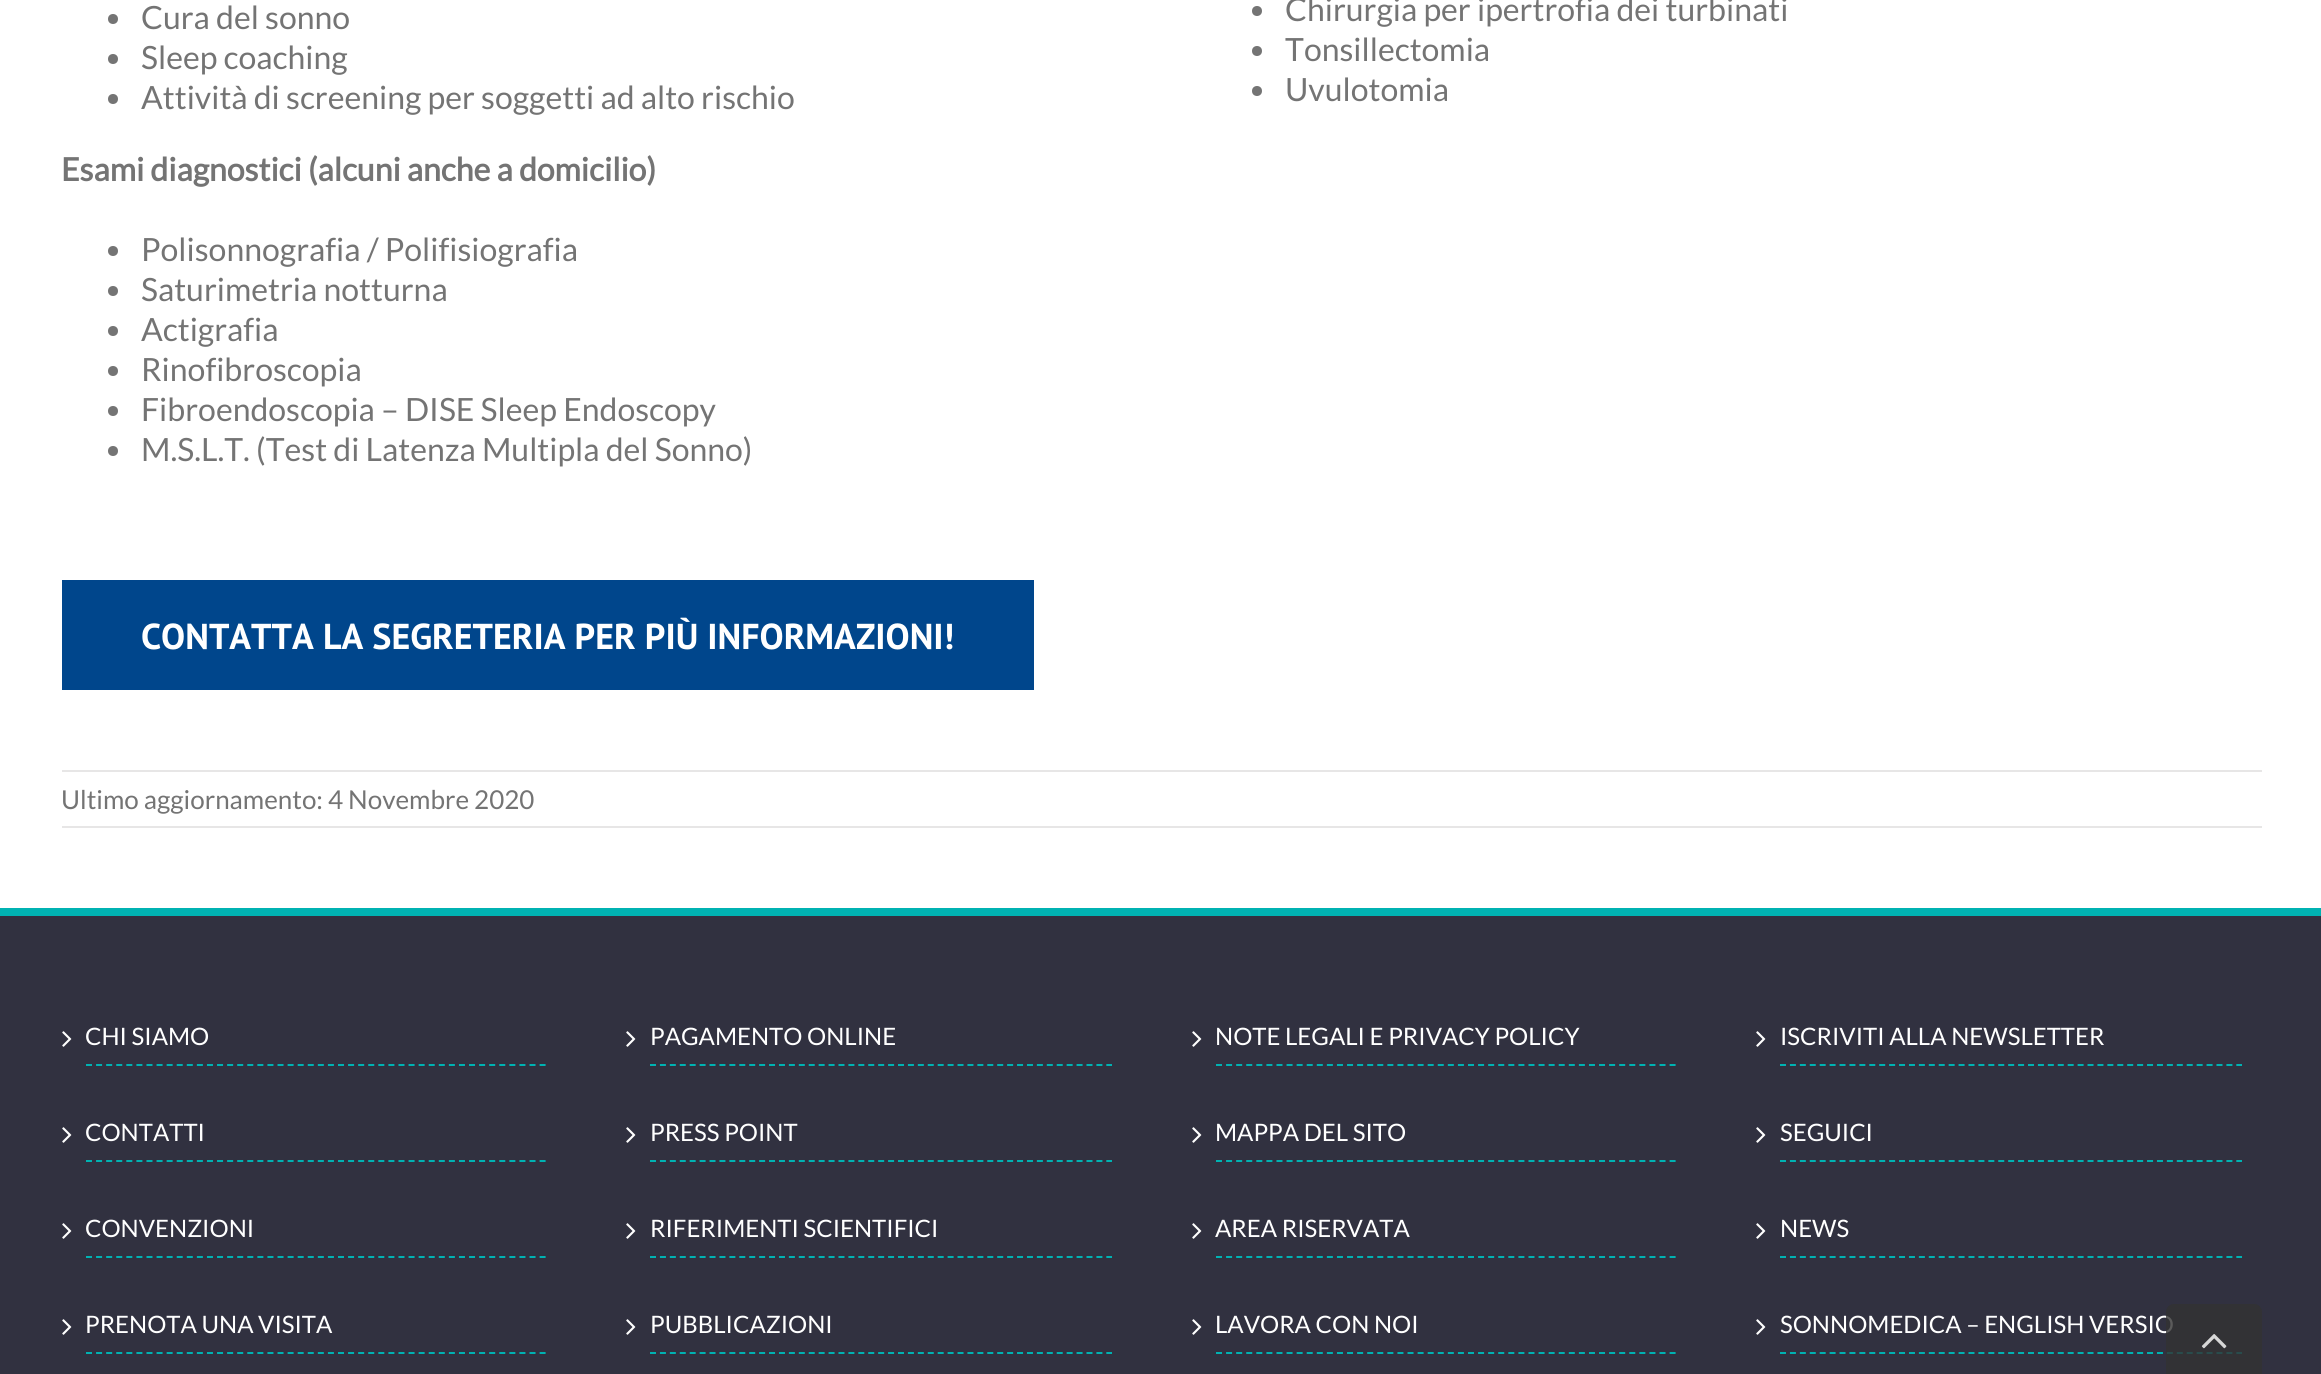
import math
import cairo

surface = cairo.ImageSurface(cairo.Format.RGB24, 2321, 1374)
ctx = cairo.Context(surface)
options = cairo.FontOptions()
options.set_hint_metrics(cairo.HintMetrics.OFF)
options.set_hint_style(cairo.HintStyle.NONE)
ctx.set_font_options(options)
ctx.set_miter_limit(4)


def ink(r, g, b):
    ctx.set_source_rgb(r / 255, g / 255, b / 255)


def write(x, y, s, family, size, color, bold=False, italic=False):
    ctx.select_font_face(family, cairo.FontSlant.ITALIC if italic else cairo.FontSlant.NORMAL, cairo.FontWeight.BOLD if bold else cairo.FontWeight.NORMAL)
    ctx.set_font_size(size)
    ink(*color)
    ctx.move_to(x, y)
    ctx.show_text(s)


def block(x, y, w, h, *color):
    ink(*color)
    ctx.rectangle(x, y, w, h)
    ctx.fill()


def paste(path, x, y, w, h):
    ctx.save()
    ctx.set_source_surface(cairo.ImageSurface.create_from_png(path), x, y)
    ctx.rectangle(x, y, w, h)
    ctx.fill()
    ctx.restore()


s1 = dict(family="Lato", size=32, color=(116, 116, 116))
s2 = dict(family="Lato", size=32, color=(116, 116, 116), bold=True)
s3 = dict(family="PT Sans", size=36, color=(255, 255, 255), bold=True)
s4 = dict(family="Lato", size=26, color=(116, 116, 116))
s5 = dict(family="Lato", size=24, color=(255, 255, 255))

ink(255, 255, 255)
ctx.paint()
ink(116, 116, 116)
ctx.arc(113, 19, 5, 0, 2 * math.pi)
ctx.fill()
write(141, 29, "Cura del sonno", **s1)
ctx.new_path()
ctx.arc(113, 59, 5, 0, 2 * math.pi)
ctx.fill()
write(141, 69, "Sleep coaching", **s1)
ctx.new_path()
ctx.arc(113, 99, 5, 0, 2 * math.pi)
ctx.fill()
write(141, 109, "Attività di screening per soggetti ad alto rischio", **s1)
write(61, 181, "Esami diagnostici (alcuni anche a domicilio)", **s2)
ctx.new_path()
ctx.arc(113, 251, 5, 0, 2 * math.pi)
ctx.fill()
write(141, 261, "Polisonnografia / Polifisiografia", **s1)
ctx.new_path()
ctx.arc(113, 291, 5, 0, 2 * math.pi)
ctx.fill()
write(141, 301, "Saturimetria notturna", **s1)
ctx.new_path()
ctx.arc(113, 331, 5, 0, 2 * math.pi)
ctx.fill()
write(141, 341, "Actigrafia", **s1)
ctx.new_path()
ctx.arc(113, 371, 5, 0, 2 * math.pi)
ctx.fill()
write(141, 381, "Rinofibroscopia", **s1)
ctx.new_path()
ctx.arc(113, 411, 5, 0, 2 * math.pi)
ctx.fill()
write(141, 421, "Fibroendoscopia – DISE Sleep Endoscopy", **s1)
ctx.new_path()
ctx.arc(113, 451, 5, 0, 2 * math.pi)
ctx.fill()
write(141, 461, "M.S.L.T. (Test di Latenza Multipla del Sonno)", **s1)
ctx.new_path()
ctx.arc(1257, 11, 5, 0, 2 * math.pi)
ctx.fill()
write(1285, 21, "Chirurgia per ipertrofia dei turbinati", **s1)
ctx.new_path()
ctx.arc(1257, 51, 5, 0, 2 * math.pi)
ctx.fill()
write(1285, 61, "Tonsillectomia", **s1)
ctx.new_path()
ctx.arc(1257, 91, 5, 0, 2 * math.pi)
ctx.fill()
write(1285, 101, "Uvulotomia", **s1)
block(62, 580, 972, 110, 0, 70, 140)
write(141, 649, "CONTATTA LA SEGRETERIA PER PIÙ INFORMAZIONI!", **s3)
block(62, 770, 2200, 2, 231, 230, 230)
block(62, 826, 2200, 2, 231, 230, 230)
write(61, 809, "Ultimo aggiornamento: 4 Novembre 2020", **s4)
block(0, 916, 2321, 458, 49, 49, 64)
block(0, 908, 2321, 8, 0, 178, 178)
ctx.new_path()
ctx.move_to(86, 1065)
ctx.line_to(546, 1065)
ctx.set_dash([6, 4.08])
ctx.stroke()
paste("pic1.png", 62, 1031, 10, 16)
write(85, 1045, "CHI SIAMO", **s5)
ctx.new_path()
ctx.move_to(86, 1161)
ctx.line_to(546, 1161)
ink(0, 178, 178)
ctx.stroke()
paste("pic1.png", 62, 1127, 10, 16)
write(85, 1141, "CONTATTI", **s5)
ctx.new_path()
ctx.move_to(86, 1257)
ctx.line_to(546, 1257)
ink(0, 178, 178)
ctx.stroke()
paste("pic1.png", 62, 1223, 10, 16)
write(85, 1237, "CONVENZIONI", **s5)
ctx.new_path()
ctx.move_to(86, 1353)
ctx.line_to(546, 1353)
ink(0, 178, 178)
ctx.stroke()
paste("pic1.png", 62, 1319, 10, 16)
write(85, 1333, "PRENOTA UNA VISITA", **s5)
ctx.new_path()
ctx.move_to(650, 1065)
ctx.line_to(1112, 1065)
ink(0, 178, 178)
ctx.set_dash([6, 3.92])
ctx.stroke()
paste("pic1.png", 626, 1031, 10, 16)
write(650, 1045, "PAGAMENTO ONLINE", **s5)
ctx.new_path()
ctx.move_to(650, 1161)
ctx.line_to(1112, 1161)
ink(0, 178, 178)
ctx.stroke()
paste("pic1.png", 626, 1127, 10, 16)
write(650, 1141, "PRESS POINT", **s5)
ctx.new_path()
ctx.move_to(650, 1257)
ctx.line_to(1112, 1257)
ink(0, 178, 178)
ctx.stroke()
paste("pic1.png", 626, 1223, 10, 16)
write(650, 1237, "RIFERIMENTI SCIENTIFICI", **s5)
ctx.new_path()
ctx.move_to(650, 1353)
ctx.line_to(1112, 1353)
ink(0, 178, 178)
ctx.stroke()
paste("pic1.png", 626, 1319, 10, 16)
write(650, 1333, "PUBBLICAZIONI", **s5)
ctx.new_path()
ctx.move_to(1216, 1065)
ctx.line_to(1676, 1065)
ink(0, 178, 178)
ctx.set_dash([6, 4.08])
ctx.stroke()
paste("pic1.png", 1192, 1031, 10, 16)
write(1215, 1045, "NOTE LEGALI E PRIVACY POLICY", **s5)
ctx.new_path()
ctx.move_to(1216, 1161)
ctx.line_to(1676, 1161)
ink(0, 178, 178)
ctx.stroke()
paste("pic1.png", 1192, 1127, 10, 16)
write(1215, 1141, "MAPPA DEL SITO", **s5)
ctx.new_path()
ctx.move_to(1216, 1257)
ctx.line_to(1676, 1257)
ink(0, 178, 178)
ctx.stroke()
paste("pic1.png", 1192, 1223, 10, 16)
write(1215, 1237, "AREA RISERVATA", **s5)
ctx.new_path()
ctx.move_to(1216, 1353)
ctx.line_to(1676, 1353)
ink(0, 178, 178)
ctx.stroke()
paste("pic1.png", 1192, 1319, 10, 16)
write(1215, 1333, "LAVORA CON NOI", **s5)
ctx.new_path()
ctx.move_to(1780, 1065)
ctx.line_to(2242, 1065)
ink(0, 178, 178)
ctx.set_dash([6, 3.92])
ctx.stroke()
paste("pic1.png", 1756, 1031, 10, 16)
write(1780, 1045, "ISCRIVITI ALLA NEWSLETTER", **s5)
ctx.new_path()
ctx.move_to(1780, 1161)
ctx.line_to(2242, 1161)
ink(0, 178, 178)
ctx.stroke()
paste("pic1.png", 1756, 1127, 10, 16)
write(1780, 1141, "SEGUICI", **s5)
ctx.new_path()
ctx.move_to(1780, 1257)
ctx.line_to(2242, 1257)
ink(0, 178, 178)
ctx.stroke()
paste("pic1.png", 1756, 1223, 10, 16)
write(1780, 1237, "NEWS", **s5)
ctx.new_path()
ctx.move_to(1780, 1353)
ctx.line_to(2242, 1353)
ink(0, 178, 178)
ctx.stroke()
paste("pic1.png", 1756, 1319, 10, 16)
write(1780, 1333, "SONNOMEDICA – ENGLISH VERSIO", **s5)
ctx.set_source_rgba(0.2, 0.2, 0.2, 0.8)
ctx.new_path()
ctx.move_to(2174, 1304)
ctx.line_to(2254, 1304)
ctx.curve_to(2258.5, 1304, 2262, 1307.5, 2262, 1312)
ctx.line_to(2262, 1374)
ctx.line_to(2166, 1374)
ctx.line_to(2166, 1312)
ctx.curve_to(2166, 1307.5, 2169.5, 1304, 2174, 1304)
ctx.close_path()
ctx.fill()
paste("pic2.png", 2201, 1334, 26, 15)
surface.write_to_png("screenshot.png")
